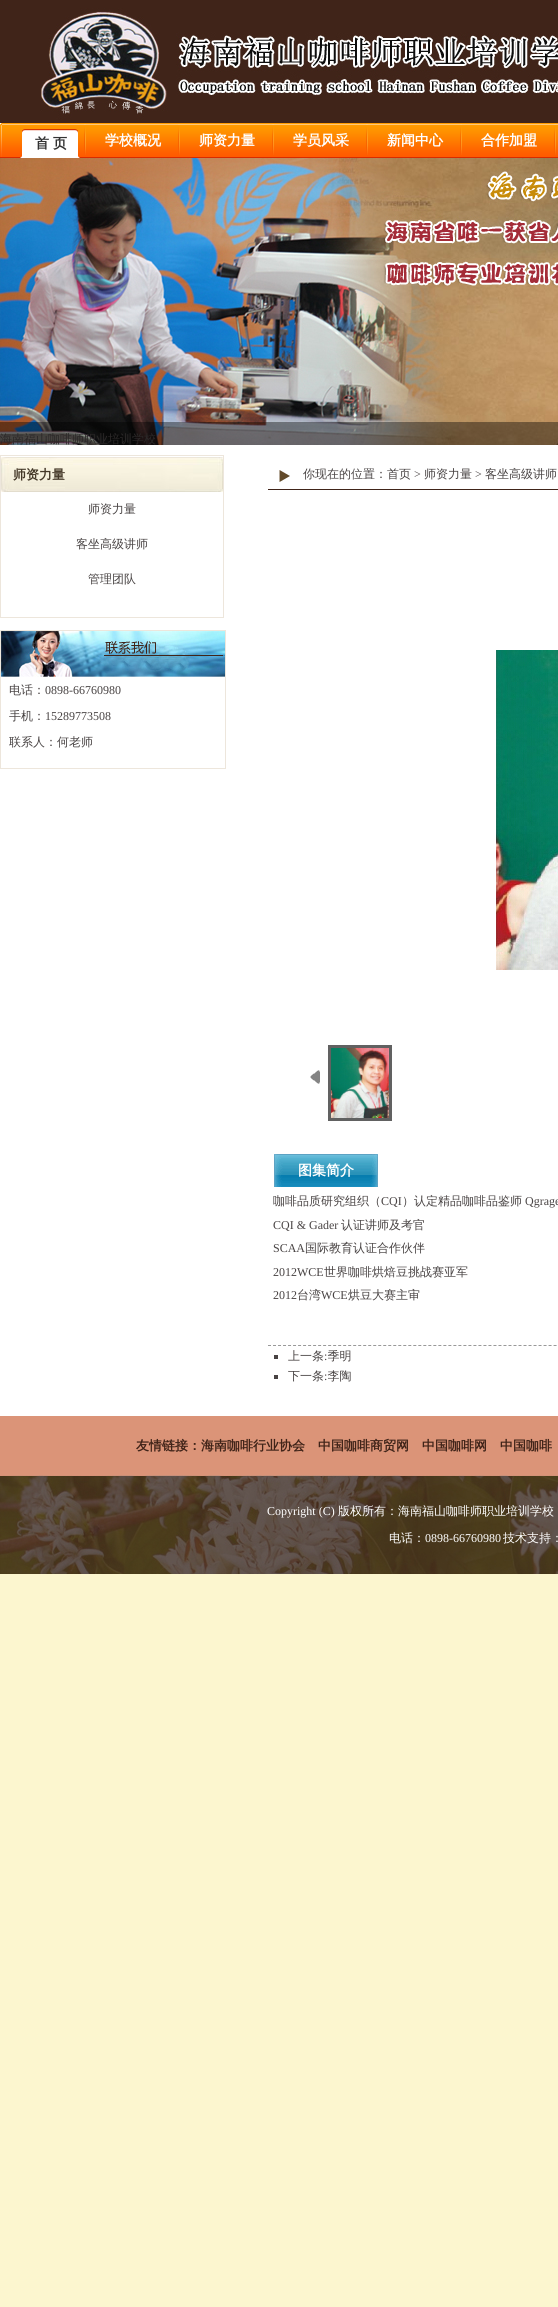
import math
import cairo

surface = cairo.ImageSurface(cairo.Format.RGB24, 558, 2307)
ctx = cairo.Context(surface)
options = cairo.FontOptions()
options.set_hint_metrics(cairo.HintMetrics.OFF)
options.set_hint_style(cairo.HintStyle.NONE)
ctx.set_font_options(options)
ctx.set_miter_limit(4)


def ink(r, g, b):
    ctx.set_source_rgb(r / 255, g / 255, b / 255)


def write(x, y, s, family, size, color, bold=False, italic=False):
    ctx.select_font_face(family, cairo.FontSlant.ITALIC if italic else cairo.FontSlant.NORMAL, cairo.FontWeight.BOLD if bold else cairo.FontWeight.NORMAL)
    ctx.set_font_size(size)
    ink(*color)
    ctx.move_to(x, y)
    ctx.show_text(s)


def block(x, y, w, h, *color):
    ink(*color)
    ctx.rectangle(x, y, w, h)
    ctx.fill()


def paste(path, x, y, w, h):
    ctx.save()
    ctx.set_source_surface(cairo.ImageSurface.create_from_png(path), x, y)
    ctx.rectangle(x, y, w, h)
    ctx.fill()
    ctx.restore()


s1 = dict(family="WenQuanYi Zen Hei", size=14, color=(51, 51, 51), bold=True)
s2 = dict(family="WenQuanYi Zen Hei", size=14, color=(255, 255, 255), bold=True)
s3 = dict(family="WenQuanYi Zen Hei Medium", size=12, color=(72, 67, 67))
s4 = dict(family="WenQuanYi Zen Hei", size=13, color=(68, 56, 40), bold=True)
s5 = dict(family="Liberation Serif", size=12, color=(72, 67, 67))
s6 = dict(family="WenQuanYi Zen Hei", size=13, color=(64, 36, 25), bold=True)
s7 = dict(family="Liberation Serif", size=12, color=(255, 255, 255))
s8 = dict(family="WenQuanYi Zen Hei Medium", size=12, color=(255, 255, 255))

ink(252, 246, 207)
ctx.paint()
block(0, 445, 558, 971, 255, 255, 255)
paste("pic1.png", 0, 0, 558, 123)
paste("pic2.png", 0, 123, 4, 35)
paste("pic3.png", 4, 123, 554, 35)
paste("pic4.png", 20, 129, 5, 29)
paste("pic5.png", 25, 129, 55, 29)
write(35, 148, "首", **s1)
write(53, 148, "页", **s1)
paste("pic6.png", 84, 124, 2, 31)
write(105, 145, "学校概况", **s2)
paste("pic6.png", 178, 124, 2, 31)
write(199, 145, "师资力量", **s2)
paste("pic6.png", 272, 124, 2, 31)
write(293, 145, "学员风采", **s2)
paste("pic6.png", 366, 124, 2, 31)
write(387, 145, "新闻中心", **s2)
paste("pic6.png", 460, 124, 2, 31)
write(481, 145, "合作加盟", **s2)
paste("pic6.png", 554, 124, 2, 31)
paste("pic7.png", 0, 158, 558, 287)
write(0, 443, "海南福山咖啡师职业培训学校", **s3)
ctx.set_source_rgba(0, 0, 0, 0.4)
ctx.rectangle(0, 422, 558, 23)
ctx.fill()
ctx.rectangle(0.5, 455.5, 223, 162)
ink(237, 230, 220)
ctx.set_line_width(1)
ctx.stroke()
paste("pic8.png", 1, 457, 222, 35)
write(13, 479, "师资力量", **s4)
write(88, 513, "师资力量", **s3)
write(76, 548, "客坐高级讲师", **s3)
write(88, 583, "管理团队", **s3)
ctx.rectangle(0.5, 630.5, 225, 138)
ink(237, 230, 220)
ctx.stroke()
paste("pic9.png", 1, 631, 224, 46)
write(9, 694, "电话：", **s3)
write(45, 694, "0898-66760980", **s5)
write(9, 720, "手机：", **s3)
write(45, 720, "15289773508", **s5)
write(9, 746, "联系人：何老师", **s3)
paste("pic10.png", 279, 470, 11, 12)
block(268, 489, 290, 1, 64, 36, 25)
write(303, 478, "你现在的位置：首页", **s3)
write(414, 478, ">", **s5)
write(424, 478, "师资力量", **s3)
write(475, 478, ">", **s5)
write(485, 478, "客坐高级讲师", **s3)
paste("pic11.png", 496, 650, 62, 320)
paste("pic12.png", 310, 1070, 10, 14)
ctx.rectangle(329.5, 1046.5, 61, 73)
ink(97, 97, 97)
ctx.set_line_width(3)
ctx.stroke()
paste("pic13.png", 331, 1048, 58, 70)
paste("pic14.png", 274, 1154, 9, 33)
paste("pic15.png", 283, 1154, 95, 33)
write(298, 1175, "图集简介", **s2)
write(273, 1205, "咖啡品质研究组织（", **s3)
write(381, 1205, "CQI", **s5)
write(402, 1205, "）认定精品咖啡品鉴师", **s3)
write(525, 1205, "Qgrage", **s5)
write(273, 1229, "CQI & Gader", **s5)
write(341, 1229, "认证讲师及考官", **s3)
write(273, 1252, "SCAA", **s5)
write(305, 1252, "国际教育认证合作伙伴", **s3)
write(273, 1276, "2012WCE", **s5)
write(324, 1276, "世界咖啡烘焙豆挑战赛亚军", **s3)
write(273, 1299, "2012", **s5)
write(297, 1299, "台湾", **s3)
write(321, 1299, "WCE", **s5)
write(348, 1299, "烘豆大赛主审", **s3)
ctx.new_path()
ctx.move_to(268, 1345.5)
ctx.line_to(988, 1345.5)
ink(153, 153, 153)
ctx.set_line_width(1)
ctx.set_dash([3, 2.01])
ctx.stroke()
write(288, 1360, "上一条 季明", **s3)
block(274, 1355, 4, 4, 72, 67, 67)
write(324, 1360, ":", **s5)
write(288, 1380, "下一条 李陶", **s3)
block(274, 1375, 4, 4, 72, 67, 67)
write(324, 1380, ":", **s5)
block(0, 1416, 558, 59, 219, 148, 120)
write(136, 1450, "友情链接：海南咖啡行业协会", **s6)
write(318, 1450, "中国咖啡商贸网", **s6)
write(422, 1450, "中国咖啡网", **s6)
write(500, 1450, "中国咖啡", **s6)
paste("pic16.png", 0, 1475, 558, 99)
write(267, 1515, "Copyright (C)", **s7)
write(338, 1515, "版权所有：海南福山咖啡师职业培训学校", **s8)
write(389, 1542, "电话：", **s8)
write(425, 1542, "0898-66760980", **s7)
write(503, 1542, "技术支持：", **s8)
surface.write_to_png("screenshot.png")
